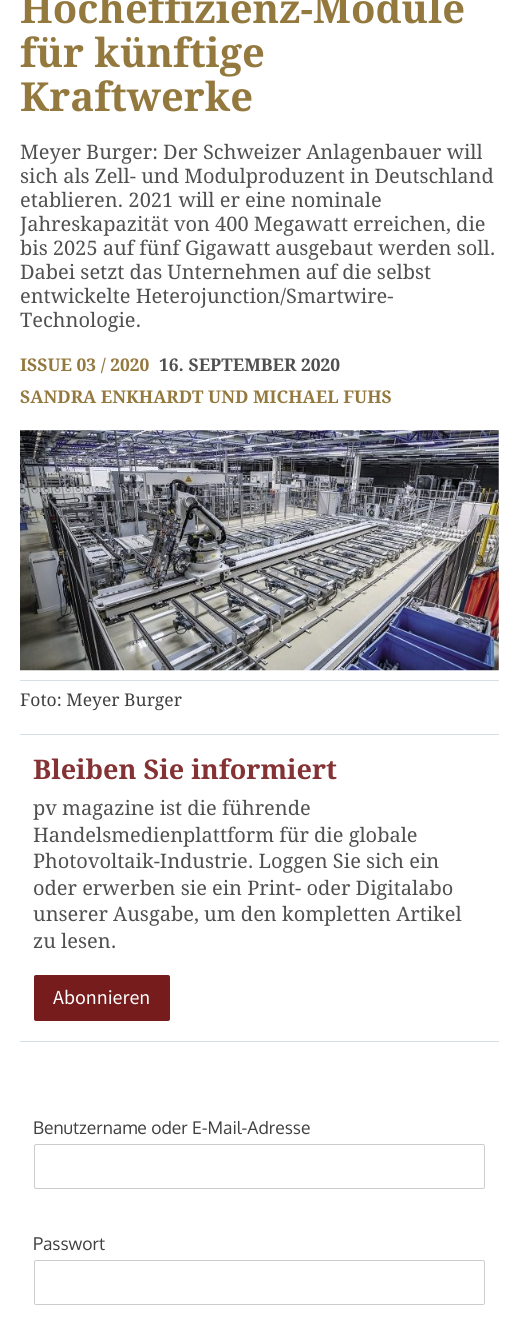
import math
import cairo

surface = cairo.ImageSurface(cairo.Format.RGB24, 518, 1326)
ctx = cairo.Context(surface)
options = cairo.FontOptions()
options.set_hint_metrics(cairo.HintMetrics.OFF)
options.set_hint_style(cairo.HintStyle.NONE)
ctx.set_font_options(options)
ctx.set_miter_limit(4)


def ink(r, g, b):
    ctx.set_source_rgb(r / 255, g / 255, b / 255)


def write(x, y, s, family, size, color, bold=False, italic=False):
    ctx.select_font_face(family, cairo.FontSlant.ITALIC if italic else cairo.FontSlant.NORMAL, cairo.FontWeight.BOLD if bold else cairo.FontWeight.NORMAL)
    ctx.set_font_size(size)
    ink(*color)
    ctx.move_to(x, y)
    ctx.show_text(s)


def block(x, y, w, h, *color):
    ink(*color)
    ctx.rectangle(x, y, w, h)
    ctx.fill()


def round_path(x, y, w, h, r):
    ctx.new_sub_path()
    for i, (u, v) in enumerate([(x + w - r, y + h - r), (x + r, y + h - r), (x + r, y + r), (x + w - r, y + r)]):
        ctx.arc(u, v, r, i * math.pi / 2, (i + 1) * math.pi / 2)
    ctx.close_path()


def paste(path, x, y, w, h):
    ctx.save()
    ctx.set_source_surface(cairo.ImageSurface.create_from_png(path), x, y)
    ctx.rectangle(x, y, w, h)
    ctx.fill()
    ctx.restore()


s1 = dict(family="Droid Serif", size=40, color=(148, 121, 63), bold=True)
s2 = dict(family="Droid Serif", size=20, color=(80, 80, 80))
s3 = dict(family="Droid Serif", size=17.5, color=(148, 121, 63), bold=True)
s4 = dict(family="Droid Serif", size=17.5, color=(80, 80, 80), bold=True)
s5 = dict(family="Droid Serif", size=17.5, color=(64, 64, 64))
s6 = dict(family="Droid Serif", size=27, color=(132, 50, 51), bold=True)
s7 = dict(family="Source Sans Pro", size=20, color=(255, 255, 255))
s8 = dict(family="Oxygen", size=17.5, color=(64, 64, 64))

ink(255, 255, 255)
ctx.paint()
write(20, 23, "Hocheffizienz-Module", **s1)
write(20, 67, "für künftige", **s1)
write(20, 111, "Kraftwerke", **s1)
write(20, 159, "Meyer Burger: Der Schweizer Anlagenbauer will", **s2)
write(20, 183, "sich als Zell- und Modulproduzent in Deutschland", **s2)
write(20, 207, "etablieren. 2021 will er eine nominale", **s2)
write(20, 231, "Jahreskapazität von 400 Megawatt erreichen, die", **s2)
write(20, 255, "bis 2025 auf fünf Gigawatt ausgebaut werden soll.", **s2)
write(20, 279, "Dabei setzt das Unternehmen auf die selbst", **s2)
write(20, 303, "entwickelte Heterojunction/Smartwire-", **s2)
write(20, 327, "Technologie.", **s2)
write(20, 371, "ISSUE 03 / 2020", **s3)
write(159, 371, "16. SEPTEMBER 2020", **s4)
write(20, 403, "SANDRA ENKHARDT UND MICHAEL FUHS", **s3)
paste("pic1.png", 20, 430, 479, 241)
block(20, 680, 479, 1, 213, 224, 228)
write(20, 706, "Foto: Meyer Burger", **s5)
block(20, 734, 479, 1, 213, 224, 228)
block(20, 1041, 479, 1, 213, 224, 228)
write(33, 779, "Bleiben Sie informiert", **s6)
write(33, 815, "pv magazine ist die führende", **s2)
write(33, 842, "Handelsmedienplattform für die globale", **s2)
write(33, 868, "Photovoltaik-Industrie. Loggen Sie sich ein", **s2)
write(33, 895, "oder erwerben sie ein Print- oder Digitalabo", **s2)
write(33, 921, "unserer Ausgabe, um den kompletten Artikel", **s2)
write(33, 948, "zu lesen.", **s2)
ink(119, 28, 29)
round_path(34, 975, 136, 46, 2)
ctx.fill()
write(53, 1004, "Abonnieren", **s7)
write(33, 1134, "Benutzername oder E-Mail-Adresse", **s8)
round_path(34.5, 1144.5, 450, 44, 1.5)
ink(204, 204, 204)
ctx.set_line_width(1)
ctx.stroke()
write(33, 1250, "Passwort", **s8)
round_path(34.5, 1260.5, 450, 44, 1.5)
ink(204, 204, 204)
ctx.stroke()
surface.write_to_png("screenshot.png")
